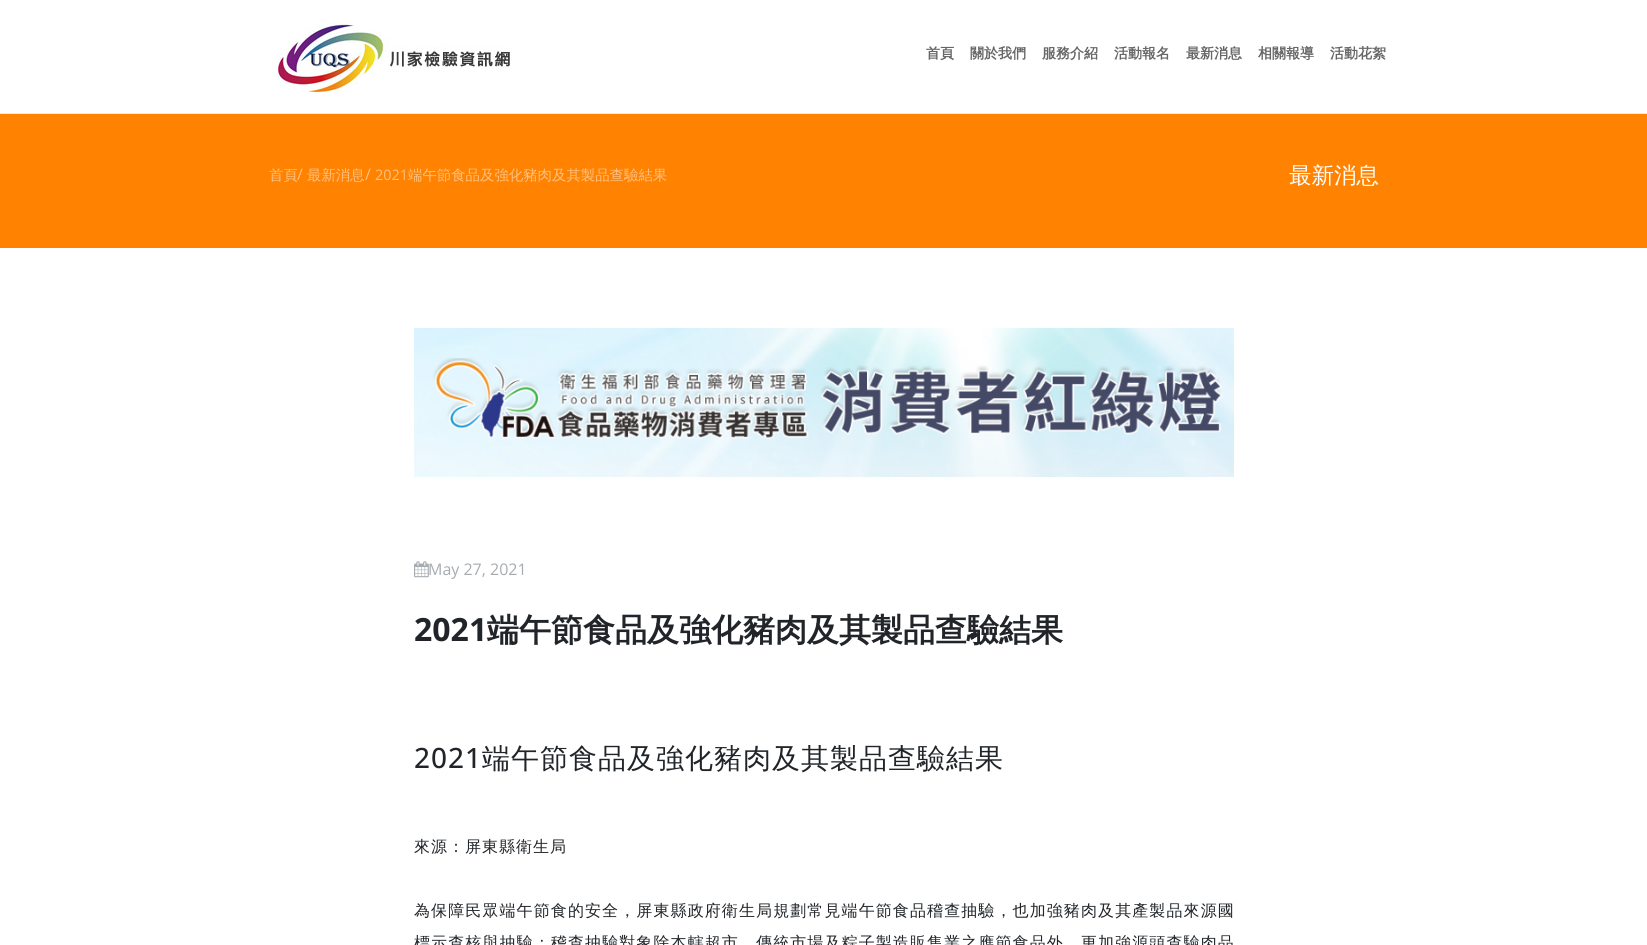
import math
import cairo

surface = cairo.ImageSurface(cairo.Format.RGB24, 1647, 945)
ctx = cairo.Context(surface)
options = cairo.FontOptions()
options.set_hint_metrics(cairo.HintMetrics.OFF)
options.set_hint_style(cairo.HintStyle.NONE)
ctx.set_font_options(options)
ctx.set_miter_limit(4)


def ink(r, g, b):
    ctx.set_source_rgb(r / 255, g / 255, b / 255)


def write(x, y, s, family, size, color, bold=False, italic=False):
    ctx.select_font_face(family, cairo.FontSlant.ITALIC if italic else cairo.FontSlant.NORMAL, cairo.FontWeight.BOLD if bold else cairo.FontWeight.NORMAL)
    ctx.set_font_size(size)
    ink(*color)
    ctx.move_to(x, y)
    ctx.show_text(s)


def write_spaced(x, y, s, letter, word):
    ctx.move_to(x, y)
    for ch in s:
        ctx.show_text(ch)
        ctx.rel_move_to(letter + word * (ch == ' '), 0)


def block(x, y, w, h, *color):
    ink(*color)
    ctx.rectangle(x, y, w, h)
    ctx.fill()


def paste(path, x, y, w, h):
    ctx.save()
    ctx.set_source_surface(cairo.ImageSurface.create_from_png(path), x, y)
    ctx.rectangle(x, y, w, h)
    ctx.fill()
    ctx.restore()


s1 = dict(family="WenQuanYi Zen Hei", size=14, color=(102, 102, 102), bold=True)
s2 = dict(family="WenQuanYi Zen Hei Medium", size=14.4, color=(255, 193, 128))
s3 = dict(family="Open Sans", size=16, color=(255, 193, 128))
s4 = dict(family="Open Sans", size=14.4, color=(255, 193, 128))
s5 = dict(family="WenQuanYi Zen Hei Medium", size=22.5, color=(255, 255, 255))
s6 = dict(family="Open Sans", size=16, color=(167, 172, 177))
s7 = dict(family="Open Sans", size=32, color=(33, 37, 41), bold=True)
s8 = dict(family="WenQuanYi Zen Hei", size=32, color=(33, 37, 41), bold=True)

ink(255, 255, 255)
ctx.paint()
block(0, 113, 1647, 1, 235, 235, 235)
paste("pic1.png", 277, 21, 233, 72)
write(926, 58, "首頁", **s1)
write(970, 58, "關於我們", **s1)
write(1042, 58, "服務介紹", **s1)
write(1114, 58, "活動報名", **s1)
write(1186, 58, "最新消息", **s1)
write(1258, 58, "相關報導", **s1)
write(1330, 58, "活動花絮", **s1)
block(0, 114, 1647, 134, 255, 130, 1)
write(269, 180, "首頁", **s2)
write(297, 180, "/", **s3)
write(307, 180, "最新消息", **s2)
write(365, 180, "/", **s3)
write(375, 180, "2021", **s4)
write(408, 180, "端午節食品及強化豬肉及其製品查驗結果", **s2)
write(1289, 183, "最新消息", **s5)
paste("pic2.png", 414, 328, 820, 149)
paste("pic3.png", 414, 561, 15, 17)
write(428, 575, "May 27, 2021", **s6)
write(414, 641, "2021", **s7)
write(487, 641, "端午節食品及強化豬肉及其製品查驗結果", **s8)
ctx.select_font_face("Open Sans Medium")
ctx.set_font_size(28)
write_spaced(414, 768, "2021", 1, 0)
ctx.select_font_face("WenQuanYi Zen Hei Medium")
write_spaced(482, 768, "端午節食品及強化豬肉及其製品查驗結果", 1, 0)
ctx.set_font_size(16)
write_spaced(414, 852, "來源：屏東縣衛生局", 1, 0)
write_spaced(414, 916, "為保障民眾端午節食的安全，屏東縣政府衛生局規劃常見端午節食品稽查抽驗，也加強豬肉及其產製品來源國", 1.1, 0)
write_spaced(414, 948, "標示查核與抽驗；稽查抽驗對象除本轄超市、傳統市場及粽子製造販售業之應節食品外，更加強源頭查驗肉品", 1.1, 0)
surface.write_to_png("screenshot.png")
